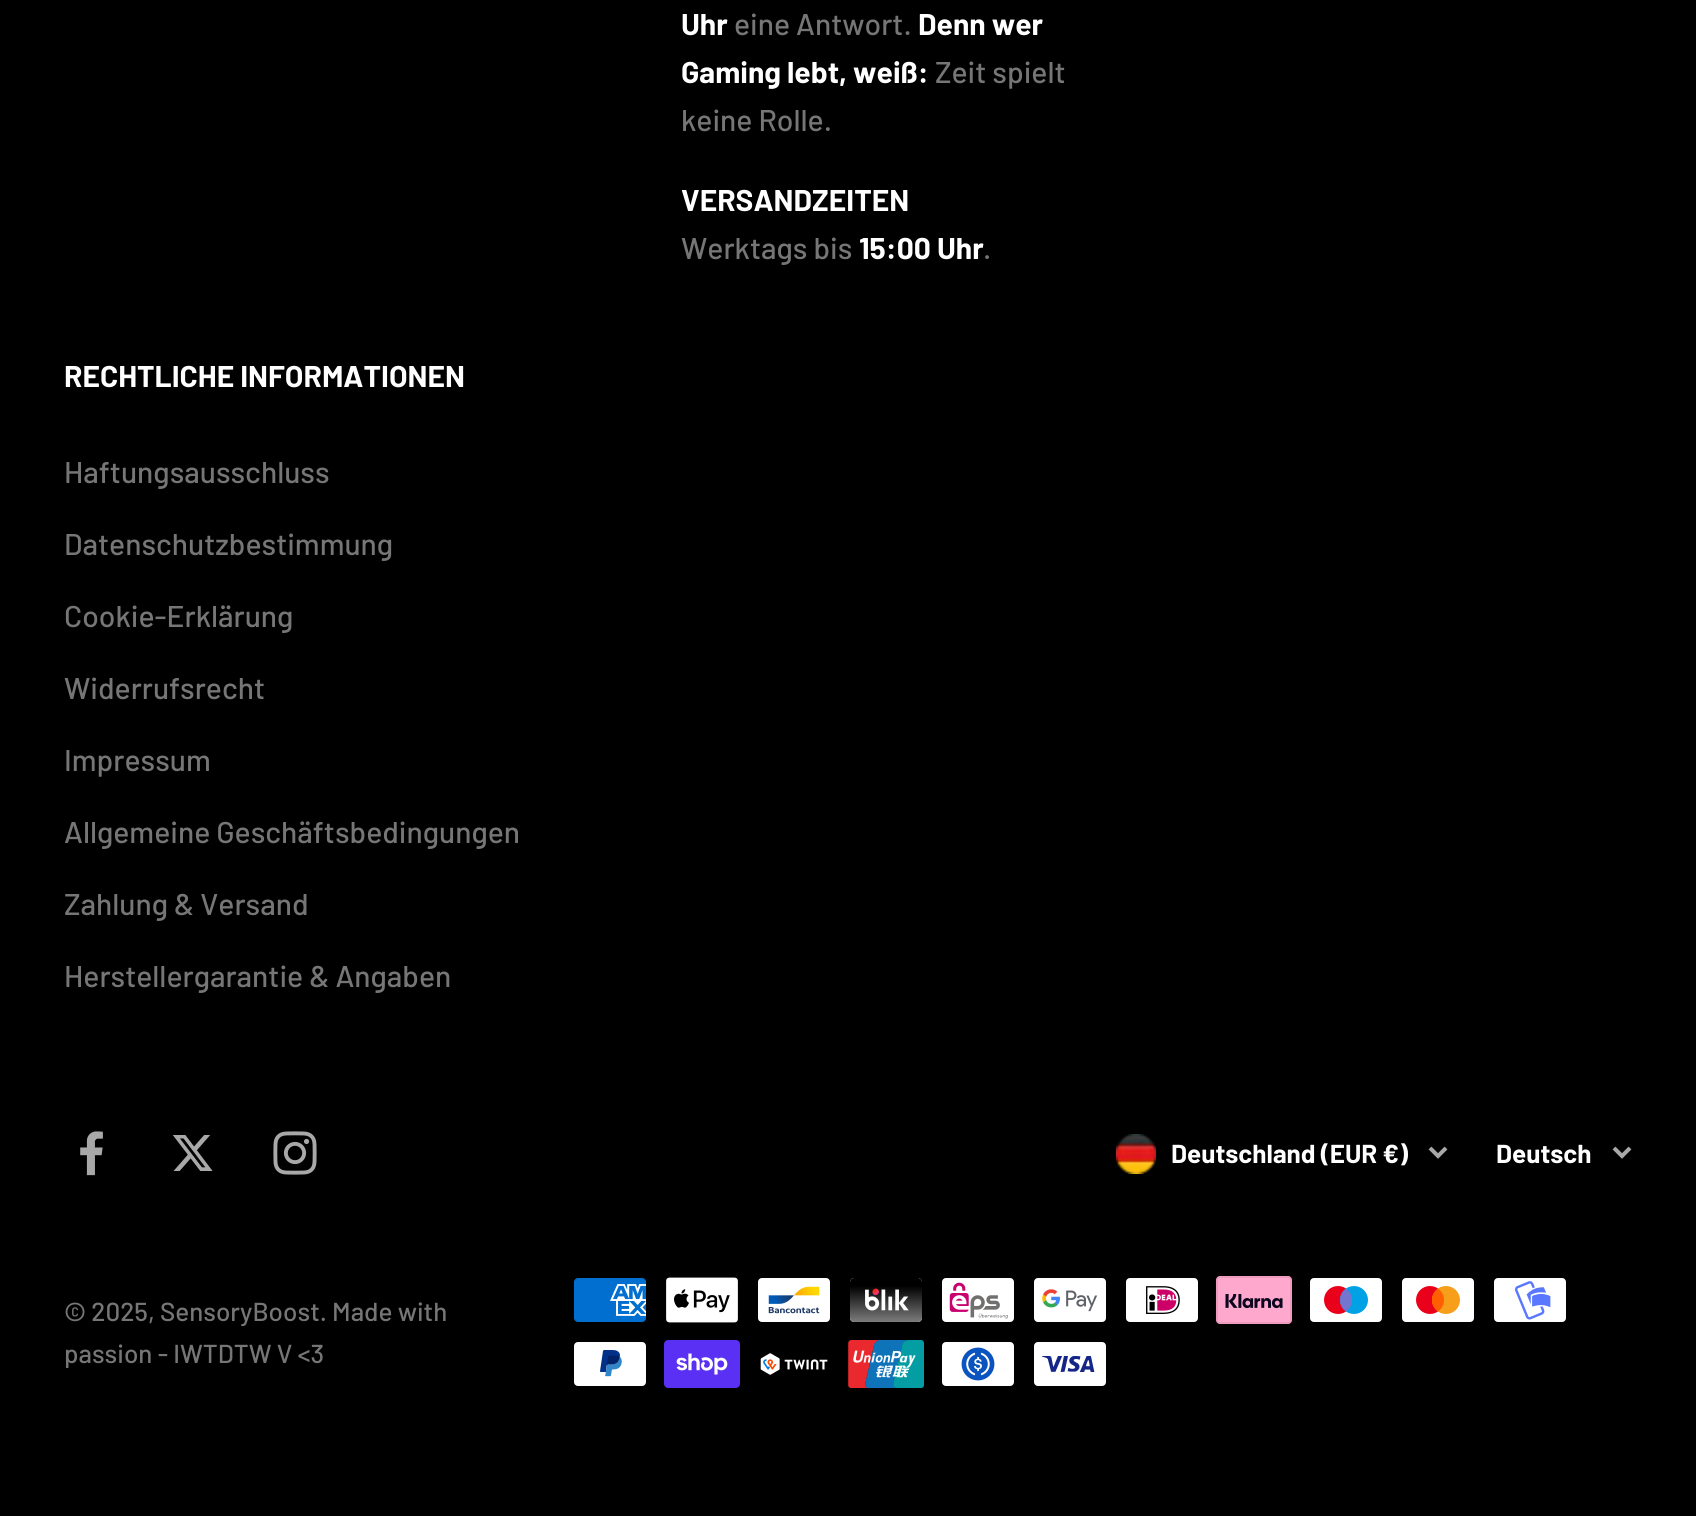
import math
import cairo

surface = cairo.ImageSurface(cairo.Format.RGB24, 1696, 1516)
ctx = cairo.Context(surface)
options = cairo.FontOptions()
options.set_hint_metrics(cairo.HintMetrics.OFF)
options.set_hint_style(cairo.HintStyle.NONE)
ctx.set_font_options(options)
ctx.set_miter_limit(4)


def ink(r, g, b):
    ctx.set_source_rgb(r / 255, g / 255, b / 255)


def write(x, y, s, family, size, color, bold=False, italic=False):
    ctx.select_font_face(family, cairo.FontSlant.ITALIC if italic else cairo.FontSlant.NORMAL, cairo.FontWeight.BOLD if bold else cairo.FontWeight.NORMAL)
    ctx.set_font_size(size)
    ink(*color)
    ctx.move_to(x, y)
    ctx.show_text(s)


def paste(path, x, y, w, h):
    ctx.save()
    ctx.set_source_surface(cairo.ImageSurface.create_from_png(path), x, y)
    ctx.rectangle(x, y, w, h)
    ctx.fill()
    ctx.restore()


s1 = dict(family="Barlow", size=30, color=(255, 255, 255), bold=True)
s2 = dict(family="Barlow Medium", size=30, color=(118, 118, 118))
s3 = dict(family="Barlow", size=26, color=(255, 255, 255), bold=True)
s4 = dict(family="Barlow Medium", size=26, color=(118, 118, 118))

ink(0, 0, 0)
ctx.paint()
write(681, 35, "Uhr", **s1)
write(734, 35, "eine Antwort.", **s2)
write(918, 35, "Denn wer", **s1)
write(681, 83, "Gaming lebt, weiß:", **s1)
write(935, 83, "Zeit spielt", **s2)
write(681, 131, "keine Rolle.", **s2)
write(681, 211, "VERSANDZEITEN", **s1)
write(681, 259, "Werktags bis", **s2)
write(859, 259, "15:00 Uhr", **s1)
write(983, 259, ".", **s2)
write(64, 387, "RECHTLICHE INFORMATIONEN", **s1)
write(64, 483, "Haftungsausschluss", **s2)
write(64, 555, "Datenschutzbestimmung", **s2)
write(64, 627, "Cookie-Erklärung", **s2)
write(64, 699, "Widerrufsrecht", **s2)
write(64, 771, "Impressum", **s2)
write(64, 843, "Allgemeine Geschäftsbedingungen", **s2)
write(64, 915, "Zahlung & Versand", **s2)
write(64, 987, "Herstellergarantie & Angaben", **s2)
paste("pic1.png", 80, 1131, 23, 45)
paste("pic2.png", 172, 1135, 41, 36)
paste("pic3.png", 273, 1131, 44, 44)
paste("pic4.png", 1116, 1134, 40, 40)
write(1171, 1163, "Deutschland (EUR €)", **s3)
ctx.new_path()
ctx.move_to(1430, 1148)
ctx.line_to(1438, 1156)
ctx.line_to(1446, 1148)
ink(168, 168, 168)
ctx.set_line_width(4)
ctx.stroke()
write(1496, 1163, "Deutsch", **s3)
ctx.new_path()
ctx.move_to(1614, 1148)
ctx.line_to(1622, 1156)
ctx.line_to(1630, 1148)
ink(168, 168, 168)
ctx.stroke()
write(64, 1321, "© 2025, SensoryBoost. Made with", **s4)
write(64, 1363, "passion - IWTDTW V <3", **s4)
paste("pic5.png", 574, 1278, 72, 44)
paste("pic6.png", 666, 1277, 72, 46)
paste("pic7.png", 758, 1278, 72, 44)
paste("pic8.png", 850, 1278, 72, 44)
paste("pic9.png", 942, 1278, 72, 44)
paste("pic10.png", 1034, 1278, 72, 44)
paste("pic11.png", 1126, 1278, 72, 44)
paste("pic12.png", 1216, 1276, 76, 48)
paste("pic13.png", 1310, 1278, 72, 44)
paste("pic14.png", 1402, 1278, 72, 44)
paste("pic15.png", 1494, 1278, 72, 44)
paste("pic16.png", 574, 1342, 72, 44)
paste("pic17.png", 664, 1340, 76, 48)
paste("pic18.png", 760, 1353, 68, 22)
paste("pic19.png", 848, 1340, 76, 48)
paste("pic20.png", 942, 1342, 72, 44)
paste("pic21.png", 1034, 1342, 72, 44)
surface.write_to_png("screenshot.png")
